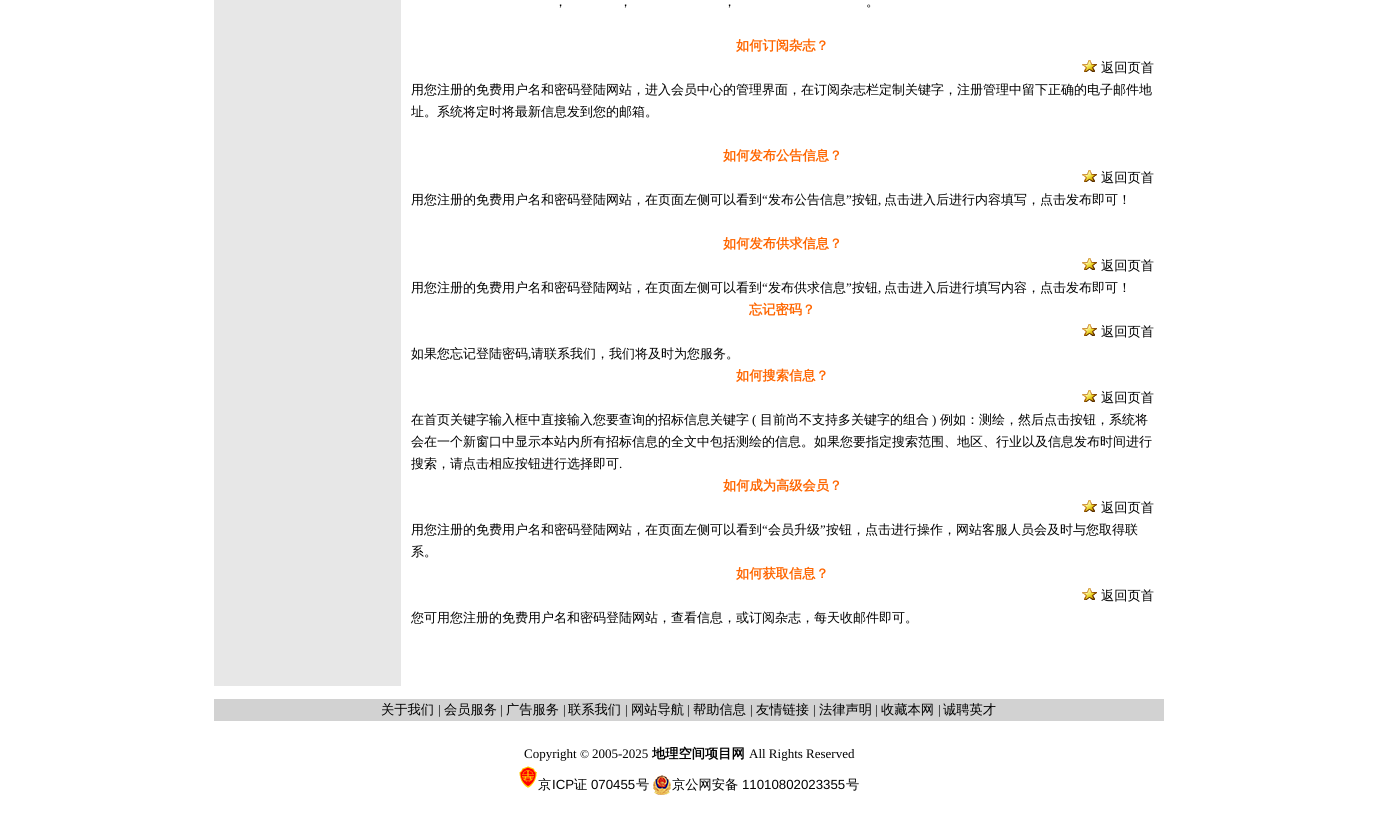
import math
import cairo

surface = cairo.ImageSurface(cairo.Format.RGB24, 1378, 824)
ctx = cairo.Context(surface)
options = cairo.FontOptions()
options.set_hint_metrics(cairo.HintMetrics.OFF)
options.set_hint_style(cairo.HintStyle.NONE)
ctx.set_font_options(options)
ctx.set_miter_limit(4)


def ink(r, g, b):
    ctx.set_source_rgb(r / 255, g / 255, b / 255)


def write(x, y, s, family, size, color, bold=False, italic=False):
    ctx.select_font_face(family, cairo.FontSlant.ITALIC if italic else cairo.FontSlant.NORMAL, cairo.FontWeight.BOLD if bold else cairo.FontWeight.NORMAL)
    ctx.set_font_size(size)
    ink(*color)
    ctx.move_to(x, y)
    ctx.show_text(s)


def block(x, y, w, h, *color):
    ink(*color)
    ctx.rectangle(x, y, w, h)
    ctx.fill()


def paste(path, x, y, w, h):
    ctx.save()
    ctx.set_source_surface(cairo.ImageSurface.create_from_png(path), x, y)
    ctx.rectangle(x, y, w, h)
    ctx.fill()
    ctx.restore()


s1 = dict(family="WenQuanYi Zen Hei Medium", size=13, color=(0, 0, 0))
s2 = dict(family="WenQuanYi Zen Hei", size=13.25, color=(255, 102, 0), bold=True)
s3 = dict(family="WenQuanYi Zen Hei Medium", size=13.25, color=(0, 0, 0))
s4 = dict(family="Liberation Serif", size=13, color=(0, 0, 0))
s5 = dict(family="Liberation Serif", size=12, color=(0, 0, 0))
s6 = dict(family="WenQuanYi Zen Hei", size=13.25, color=(0, 0, 0), bold=True)
s7 = dict(family="Liberation Sans", size=13.25, color=(0, 0, 0))

ink(255, 255, 255)
ctx.paint()
block(214, 0, 187, 686, 231, 231, 231)
write(554, 6, "，", **s1)
write(619, 6, "，", **s1)
write(723, 6, "，", **s1)
write(866, 6, "。", **s1)
write(736, 50, "如何订阅杂志？", **s2)
paste("pic1.png", 1082, 60, 15, 12)
write(1101, 72, "返回页首", **s3)
write(411, 94, "用您注册的免费用户名和密码登陆网站，进入会员中心的管理界面，在订阅杂志栏定制关键字，注册管理中留下正确的电子邮件地", **s1)
write(411, 116, "址。系统将定时将最新信息发到您的邮箱。", **s1)
write(723, 160, "如何发布公告信息？", **s2)
paste("pic1.png", 1082, 170, 15, 12)
write(1101, 182, "返回页首", **s3)
write(411, 204, "用您注册的免费用户名和密码登陆网站，在页面左侧可以看到", **s1)
write(762, 204, "“", **s4)
write(768, 204, "发布公告信息", **s1)
write(846, 204, "”", **s4)
write(852, 204, "按钮", **s1)
write(884, 204, "点击进入后进行内容填写，点击发布即可！", **s1)
write(878, 204, ",", **s4)
write(723, 248, "如何发布供求信息？", **s2)
paste("pic1.png", 1082, 258, 15, 12)
write(1101, 270, "返回页首", **s3)
write(411, 292, "用您注册的免费用户名和密码登陆网站，在页面左侧可以看到", **s1)
write(762, 292, "“", **s4)
write(768, 292, "发布供求信息", **s1)
write(846, 292, "”", **s4)
write(852, 292, "按钮", **s1)
write(884, 292, "点击进入后进行填写内容，点击发布即可！", **s1)
write(878, 292, ",", **s4)
write(749, 314, "忘记密码？", **s2)
paste("pic1.png", 1082, 324, 15, 12)
write(1101, 336, "返回页首", **s3)
write(411, 358, "如果您忘记登陆密码", **s1)
write(528, 358, ",", **s4)
write(531, 358, "请联系我们，我们将及时为您服务。", **s1)
write(736, 380, "如何搜索信息？", **s2)
paste("pic1.png", 1082, 390, 15, 12)
write(1101, 402, "返回页首", **s3)
write(411, 424, "在首页关键字输入框中直接输入您要查询的招标信息关键字", **s1)
write(752, 424, "(", **s4)
write(760, 424, "目前尚不支持多关键字的组合", **s1)
write(932, 424, ")", **s4)
write(940, 424, "例如：测绘，然后点击按钮，系统将", **s1)
write(411, 446, "会在一个新窗口中显示本站内所有招标信息的全文中包括测绘的信息。如果您要指定搜索范围、地区、行业以及信息发布时间进行", **s1)
write(411, 468, "搜索，请点击相应按钮进行选择即可", **s1)
write(619, 468, ".", **s4)
write(723, 490, "如何成为高级会员？", **s2)
paste("pic1.png", 1082, 500, 15, 12)
write(1101, 512, "返回页首", **s3)
write(411, 534, "用您注册的免费用户名和密码登陆网站，在页面左侧可以看到", **s1)
write(762, 534, "“", **s4)
write(768, 534, "会员升级", **s1)
write(820, 534, "”", **s4)
write(826, 534, "按钮，点击进行操作，网站客服人员会及时与您取得联", **s1)
write(411, 556, "系。", **s1)
write(736, 578, "如何获取信息？", **s2)
paste("pic1.png", 1082, 588, 15, 12)
write(1101, 600, "返回页首", **s3)
write(411, 622, "您可用您注册的免费用户名和密码登陆网站，查看信息，或订阅杂志，每天收邮件即可。", **s1)
block(214, 699, 950, 22, 210, 210, 210)
write(381, 714, "关于我们", **s3)
write(438, 714, "|", **s4)
write(444, 714, "会员服务", **s3)
write(500, 714, "|", **s4)
write(506, 714, "广告服务", **s3)
write(563, 714, "|", **s4)
write(568, 714, "联系我们", **s3)
write(625, 714, "|", **s4)
write(631, 714, "网站导航", **s3)
write(687, 714, "|", **s4)
write(693, 714, "帮助信息", **s3)
write(750, 714, "|", **s4)
write(756, 714, "友情链接", **s3)
write(813, 714, "|", **s4)
write(819, 714, "法律声明", **s3)
write(875, 714, "|", **s4)
write(881, 714, "收藏本网", **s3)
write(938, 714, "|", **s4)
write(943, 714, "诚聘英才", **s3)
write(524, 758, "Copyright", **s4)
write(580, 758, "©", **s5)
write(592, 758, "2005-2025", **s4)
write(652, 758, "地理空间项目网", **s6)
write(749, 758, "All Rights Reserved", **s4)
paste("pic2.png", 519, 766, 18, 22)
write(538, 789, "京", **s3)
write(552, 789, "ICP", **s7)
write(574, 789, "证", **s3)
write(591, 789, "070455", **s7)
write(636, 789, "号", **s3)
paste("pic3.png", 653, 775, 18, 20)
write(672, 789, "京公网安备", **s3)
write(742, 789, "11010802023355", **s7)
write(846, 789, "号", **s3)
surface.write_to_png("screenshot.png")
